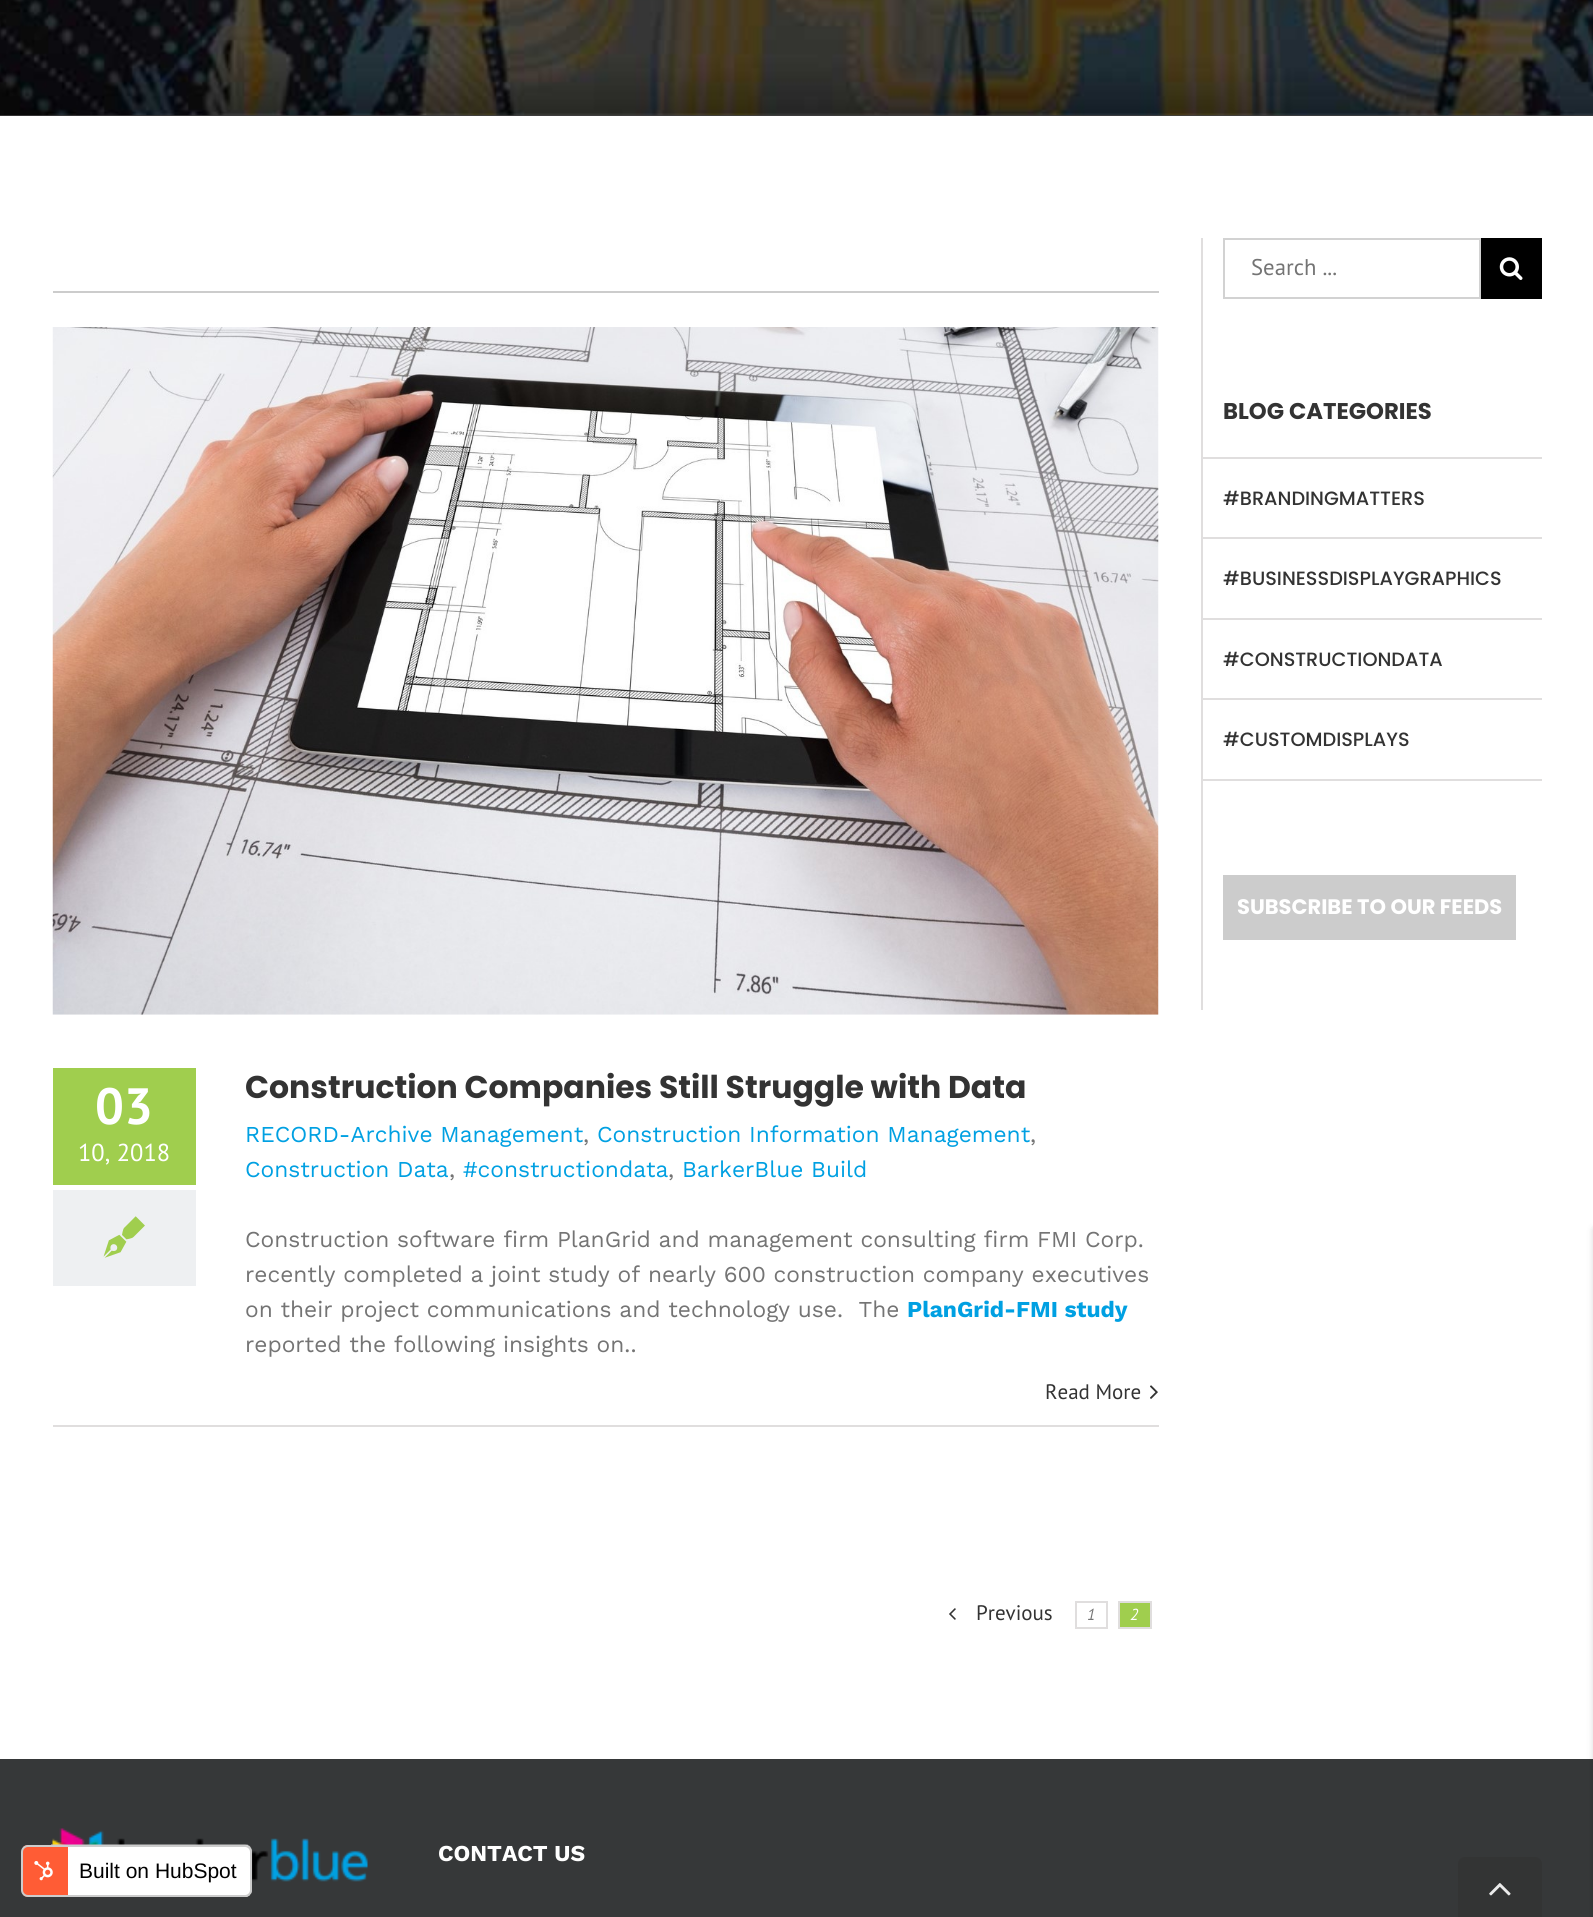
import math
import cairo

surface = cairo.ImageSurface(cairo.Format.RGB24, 1593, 1917)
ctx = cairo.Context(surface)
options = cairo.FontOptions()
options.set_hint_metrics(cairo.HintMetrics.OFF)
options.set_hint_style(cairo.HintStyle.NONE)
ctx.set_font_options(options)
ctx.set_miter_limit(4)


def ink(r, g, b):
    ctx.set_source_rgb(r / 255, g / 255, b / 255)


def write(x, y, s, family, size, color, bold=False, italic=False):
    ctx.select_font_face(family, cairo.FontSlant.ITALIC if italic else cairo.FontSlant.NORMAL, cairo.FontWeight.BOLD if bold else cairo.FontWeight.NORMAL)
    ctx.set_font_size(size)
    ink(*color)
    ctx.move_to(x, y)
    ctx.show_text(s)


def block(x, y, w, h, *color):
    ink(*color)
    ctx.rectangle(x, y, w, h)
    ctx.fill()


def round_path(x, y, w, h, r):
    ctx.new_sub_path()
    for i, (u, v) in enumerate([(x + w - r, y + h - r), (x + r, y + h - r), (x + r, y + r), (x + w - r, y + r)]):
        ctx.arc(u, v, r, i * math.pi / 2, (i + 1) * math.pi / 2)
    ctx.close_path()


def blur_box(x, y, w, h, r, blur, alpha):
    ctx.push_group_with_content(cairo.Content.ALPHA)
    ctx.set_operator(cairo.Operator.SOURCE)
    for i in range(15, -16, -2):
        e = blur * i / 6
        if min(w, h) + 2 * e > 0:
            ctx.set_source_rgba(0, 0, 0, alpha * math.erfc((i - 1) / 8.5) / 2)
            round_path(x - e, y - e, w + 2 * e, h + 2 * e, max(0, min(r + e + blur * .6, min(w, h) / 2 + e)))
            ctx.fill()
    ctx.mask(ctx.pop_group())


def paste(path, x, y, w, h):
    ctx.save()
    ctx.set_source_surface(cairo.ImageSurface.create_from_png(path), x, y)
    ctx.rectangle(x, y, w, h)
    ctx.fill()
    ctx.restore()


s1 = dict(family="PT Sans", size=22.75, color=(116, 116, 116))
s2 = dict(family="Poppins", size=22.75, color=(51, 51, 51), bold=True)
s3 = dict(family="Poppins Medium", size=19.25, color=(51, 51, 51))
s4 = dict(family="Poppins", size=21, color=(255, 255, 255), bold=True)
s5 = dict(family="PT Sans", size=51, color=(255, 255, 255), bold=True)
s6 = dict(family="PT Sans", size=24.5, color=(255, 255, 255))
s7 = dict(family="Poppins", size=31.5, color=(51, 51, 51), bold=True)
s8 = dict(family="Work Sans", size=22.75, color=(0, 160, 226))
s9 = dict(family="Work Sans", size=22.75, color=(116, 116, 116))
s10 = dict(family="Work Sans", size=22.75, color=(0, 160, 226), bold=True)
s11 = dict(family="PT Sans", size=21, color=(51, 51, 51))
s12 = dict(family="PT Sans", size=16, color=(116, 116, 116), italic=True)
s13 = dict(family="PT Sans", size=16, color=(255, 255, 255), italic=True)
s14 = dict(family="Work Sans", size=22.75, color=(255, 255, 255), bold=True)
s15 = dict(family="Liberation Sans", size=21, color=(0, 0, 0))

ink(255, 255, 255)
ctx.paint()
block(0, 115, 1593, 1, 65, 64, 66)
paste("pic1.png", 0, 0, 1593, 116)
block(1201, 238, 2, 772, 224, 222, 222)
ctx.rectangle(1224, 239, 256, 59)
ink(210, 210, 210)
ctx.stroke()
write(1251, 275, "Search ...", **s1)
block(1481, 238, 61, 61, 0, 0, 0)
paste("pic2.png", 1499, 257, 24, 23)
block(1202, 457, 340, 2, 224, 222, 222)
write(1223, 419, "BLOG CATEGORIES", **s2)
block(1202, 537, 340, 2, 224, 222, 222)
write(1223, 505, "#BRANDINGMATTERS", **s3)
block(1202, 618, 340, 2, 224, 222, 222)
write(1223, 585, "#BUSINESSDISPLAYGRAPHICS", **s3)
block(1202, 698, 340, 2, 224, 222, 222)
write(1223, 666, "#CONSTRUCTIONDATA", **s3)
block(1202, 779, 340, 2, 224, 222, 222)
write(1223, 746, "#CUSTOMDISPLAYS", **s3)
block(1223, 875, 293, 65, 204, 204, 204)
write(1237, 914, "SUBSCRIBE TO OUR FEEDS", **s4)
block(0, 1759, 1593, 158, 54, 56, 57)
ink(0, 0, 0)
blur_box(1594, 1229, 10, 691, 0, 3.5, 0.2)
block(53, 291, 1106, 2, 204, 204, 204)
paste("pic3.png", 52, 327, 1107, 688)
block(53, 1068, 143, 117, 160, 206, 78)
write(95, 1124, "03", **s5)
write(78, 1161, "10, 2018", **s6)
block(53, 1190, 143, 96, 238, 240, 242)
paste("pic4.png", 103, 1216, 42, 42)
write(245, 1098, "Construction Companies Still Struggle with Data", **s7)
write(245, 1142, "RECORD-Archive Management", **s8)
write(583, 1142, ",", **s9)
write(597, 1142, "Construction Information Management", **s8)
write(1030, 1142, ",", **s9)
write(245, 1177, "Construction Data", **s8)
write(449, 1177, ",", **s9)
write(463, 1177, "#constructiondata", **s8)
write(668, 1177, ",", **s9)
write(682, 1177, "BarkerBlue Build", **s8)
write(245, 1247, "Construction software firm PlanGrid and management consulting firm FMI Corp.", **s9)
write(245, 1282, "recently completed a joint study of nearly 600 construction company executives", **s9)
write(245, 1317, "on their project communications and technology use.  The", **s9)
write(907, 1317, "PlanGrid-FMI study", **s10)
write(245, 1352, "reported the following insights on..", **s9)
block(53, 1425, 1106, 2, 224, 222, 222)
write(1045, 1399, "Read More", **s11)
paste("pic5.png", 1150, 1385, 8, 14)
paste("pic6.png", 949, 1608, 7, 12)
write(976, 1620, "Previous", **s11)
ctx.rectangle(1076, 1602, 31, 26)
ink(224, 222, 222)
ctx.stroke()
write(1087, 1620, "1", **s12)
ink(160, 206, 78)
ctx.rectangle(1119, 1602, 32, 26)
ctx.fill_preserve()
ink(224, 222, 222)
ctx.stroke()
write(1130, 1620, "2", **s13)
paste("pic7.png", 51, 1828, 317, 66)
write(438, 1861, "CONTACT US", **s14)
ctx.save()
round_path(21, 1845, 231, 52, 7)
ctx.clip()
block(23, 1845, 45, 52, 255, 92, 53)
block(68, 1845, 182, 52, 255, 255, 255)
ctx.restore()
round_path(22, 1846, 229, 50, 6)
ink(204, 204, 204)
ctx.stroke()
paste("pic8.png", 34, 1861, 19, 20)
write(79, 1878, "Built on HubSpot", **s15)
ink(51, 52, 52)
ctx.new_path()
ctx.move_to(1465, 1857)
ctx.line_to(1535, 1857)
ctx.curve_to(1539, 1857, 1542, 1860, 1542, 1864)
ctx.line_to(1542, 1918)
ctx.line_to(1458, 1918)
ctx.line_to(1458, 1864)
ctx.curve_to(1458, 1860, 1461, 1857, 1465, 1857)
ctx.close_path()
ctx.fill()
paste("pic9.png", 1489, 1883, 22, 13)
surface.write_to_png("screenshot.png")
